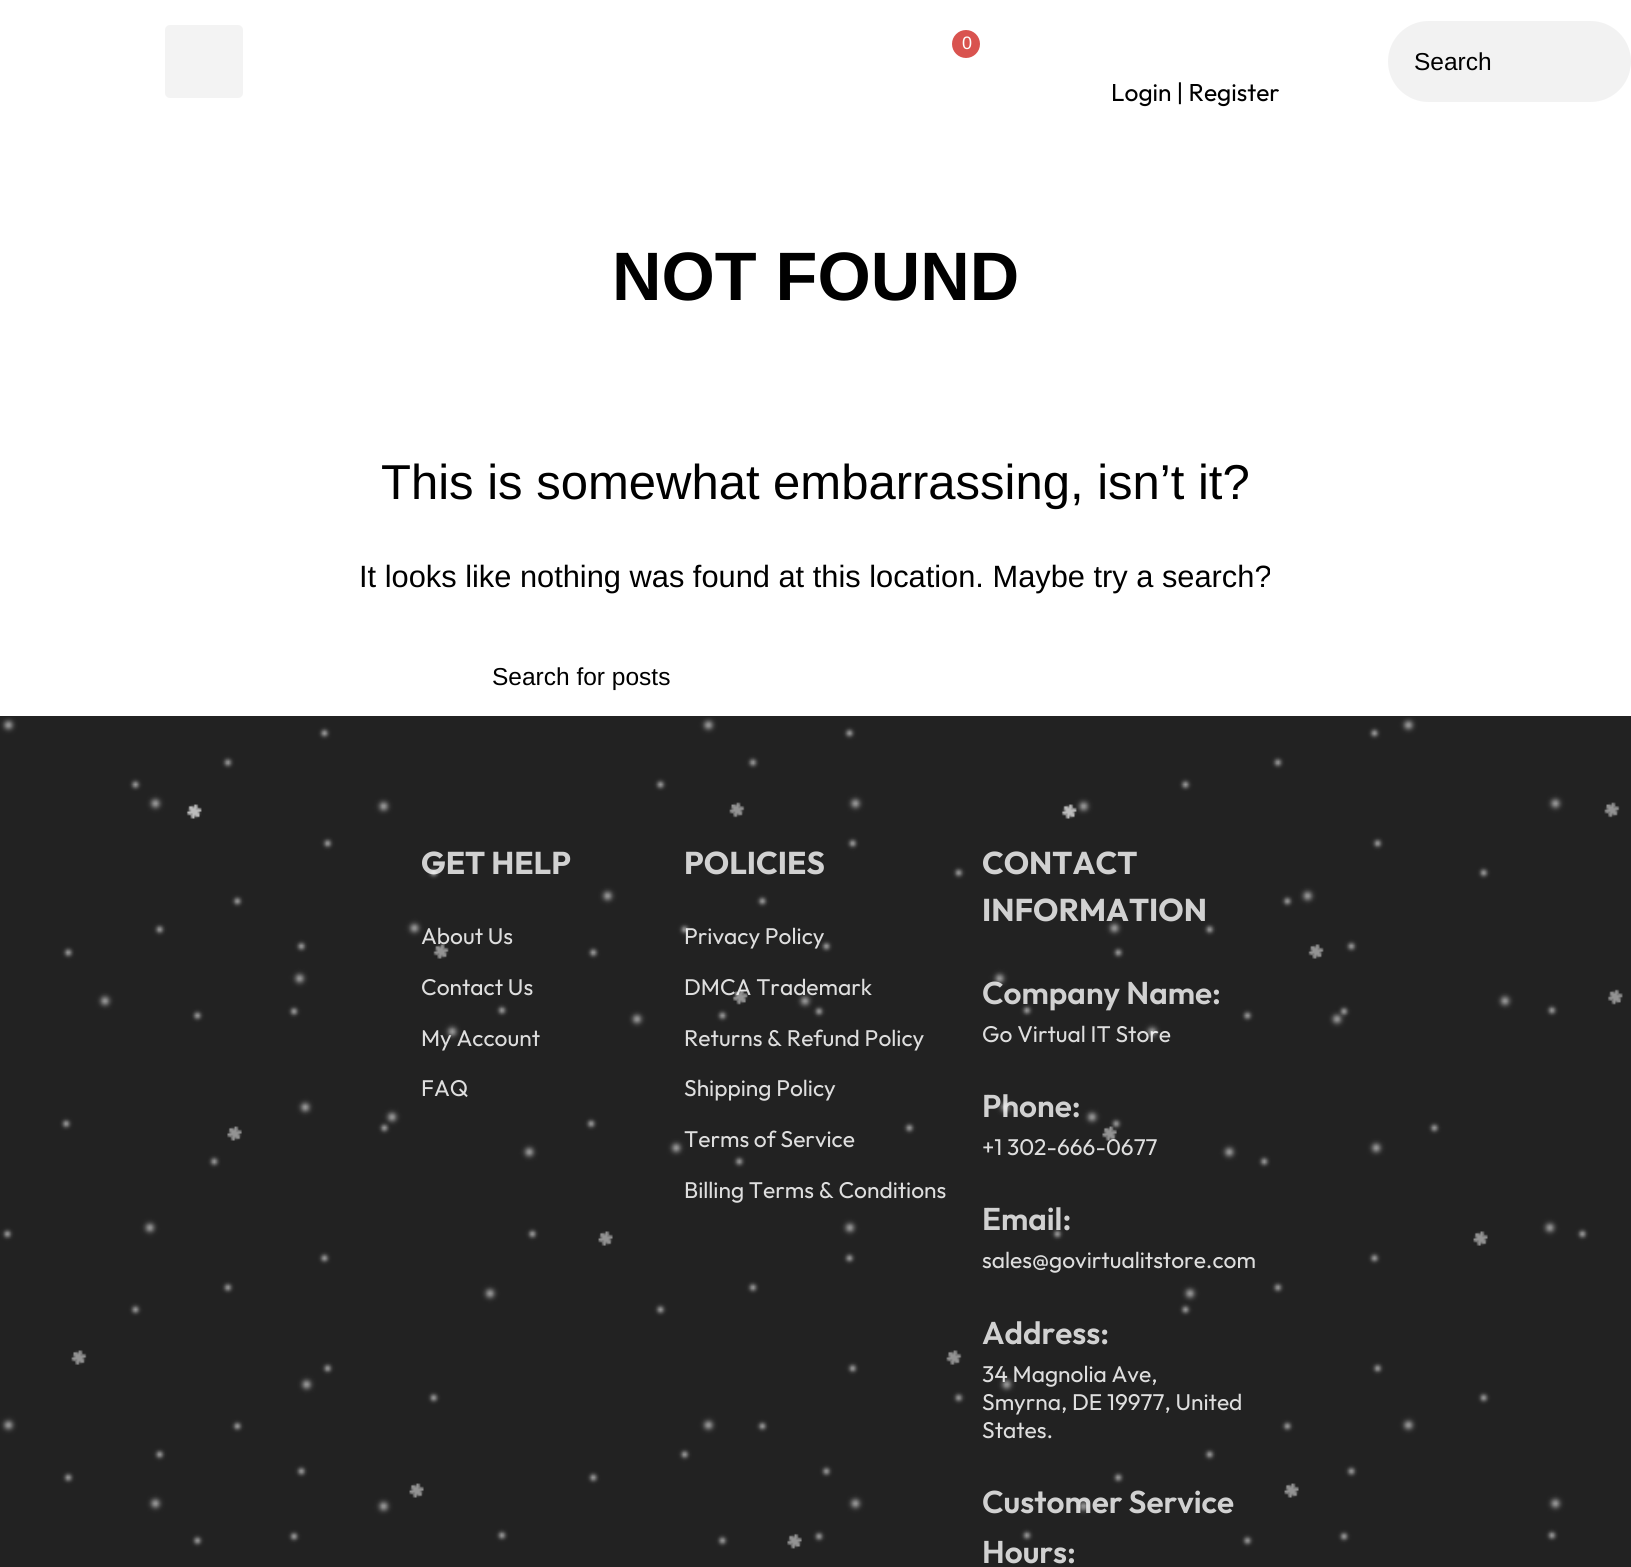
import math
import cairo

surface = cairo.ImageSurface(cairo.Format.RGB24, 1631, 1567)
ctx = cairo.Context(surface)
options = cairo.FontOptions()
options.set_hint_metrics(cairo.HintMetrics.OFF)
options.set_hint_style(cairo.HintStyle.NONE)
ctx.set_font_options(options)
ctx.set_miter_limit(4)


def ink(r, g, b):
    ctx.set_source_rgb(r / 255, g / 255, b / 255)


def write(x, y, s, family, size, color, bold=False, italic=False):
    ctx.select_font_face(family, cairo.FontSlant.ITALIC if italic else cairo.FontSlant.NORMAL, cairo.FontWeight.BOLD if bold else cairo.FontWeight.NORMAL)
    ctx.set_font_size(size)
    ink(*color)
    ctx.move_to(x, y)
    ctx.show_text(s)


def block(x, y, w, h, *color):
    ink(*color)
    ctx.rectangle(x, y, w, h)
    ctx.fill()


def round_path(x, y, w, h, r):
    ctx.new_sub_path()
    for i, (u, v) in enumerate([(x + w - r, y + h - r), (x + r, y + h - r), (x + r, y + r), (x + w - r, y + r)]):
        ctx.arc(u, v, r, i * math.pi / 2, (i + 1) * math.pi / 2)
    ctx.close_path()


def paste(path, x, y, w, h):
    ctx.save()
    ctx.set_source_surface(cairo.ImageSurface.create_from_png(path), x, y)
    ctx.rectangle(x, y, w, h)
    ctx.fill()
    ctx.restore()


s1 = dict(family="Liberation Sans", size=18, color=(255, 255, 255))
s2 = dict(family="Liberation Sans", size=24.5, color=(0, 0, 0))
s3 = dict(family="Outfit", size=24.5, color=(0, 0, 0))
s4 = dict(family="Liberation Sans", size=68.5, color=(0, 0, 0), bold=True)
s5 = dict(family="Liberation Sans", size=49, color=(0, 0, 0))
s6 = dict(family="Liberation Sans", size=30.8, color=(0, 0, 0))
s7 = dict(family="Outfit", size=31.5, color=(209, 209, 209), bold=True)
s8 = dict(family="Outfit", size=22.75, color=(222, 222, 222))
s9 = dict(family="Outfit SemiBold", size=31.5, color=(209, 209, 209))

ink(255, 255, 255)
ctx.paint()
ink(243, 243, 243)
round_path(165, 25, 78, 73, 5)
ctx.fill()
ink(217, 83, 79)
ctx.arc(966, 44, 14, 0, 2 * math.pi)
ctx.fill()
write(962, 49, "0", **s1)
ink(242, 242, 242)
round_path(1388, 21, 243, 81, 40.5)
ctx.fill()
write(1414, 70, "Search", **s2)
write(1111, 101, "Login | Register", **s3)
write(612, 300, "NOT FOUND", **s4)
write(381, 499, "This is somewhat embarrassing, isn’t it?", **s5)
write(359, 587, "It looks like nothing was found at this location. Maybe try a search?", **s6)
write(492, 685, "Search for posts", **s2)
block(0, 716, 1631, 851, 34, 34, 34)
write(421, 874, "GET HELP", **s7)
write(421, 944, "About Us", **s8)
write(421, 995, "Contact Us", **s8)
write(421, 1046, "My Account", **s8)
write(421, 1096, "FAQ", **s8)
write(684, 874, "POLICIES", **s7)
write(684, 944, "Privacy Policy", **s8)
write(684, 995, "DMCA Trademark", **s8)
write(684, 1046, "Returns & Refund Policy", **s8)
write(684, 1096, "Shipping Policy", **s8)
write(684, 1147, "Terms of Service", **s8)
write(684, 1198, "Billing Terms & Conditions", **s8)
write(982, 874, "CONTACT", **s7)
write(982, 921, "INFORMATION", **s7)
write(982, 1004, "Company Name:", **s9)
write(982, 1042, "Go Virtual IT Store", **s8)
write(982, 1117, "Phone:", **s9)
write(982, 1155, "+1 302-666-0677", **s8)
write(982, 1230, "Email:", **s9)
write(982, 1268, "sales@govirtualitstore.com", **s8)
write(982, 1344, "Address:", **s9)
write(982, 1382, "34 Magnolia Ave,", **s8)
write(982, 1410, "Smyrna, DE 19977, United", **s8)
write(982, 1438, "States.", **s8)
write(982, 1513, "Customer Service", **s9)
write(982, 1563, "Hours:", **s9)
paste("pic1.png", 0, 717, 1623, 832)
surface.write_to_png("screenshot.png")
